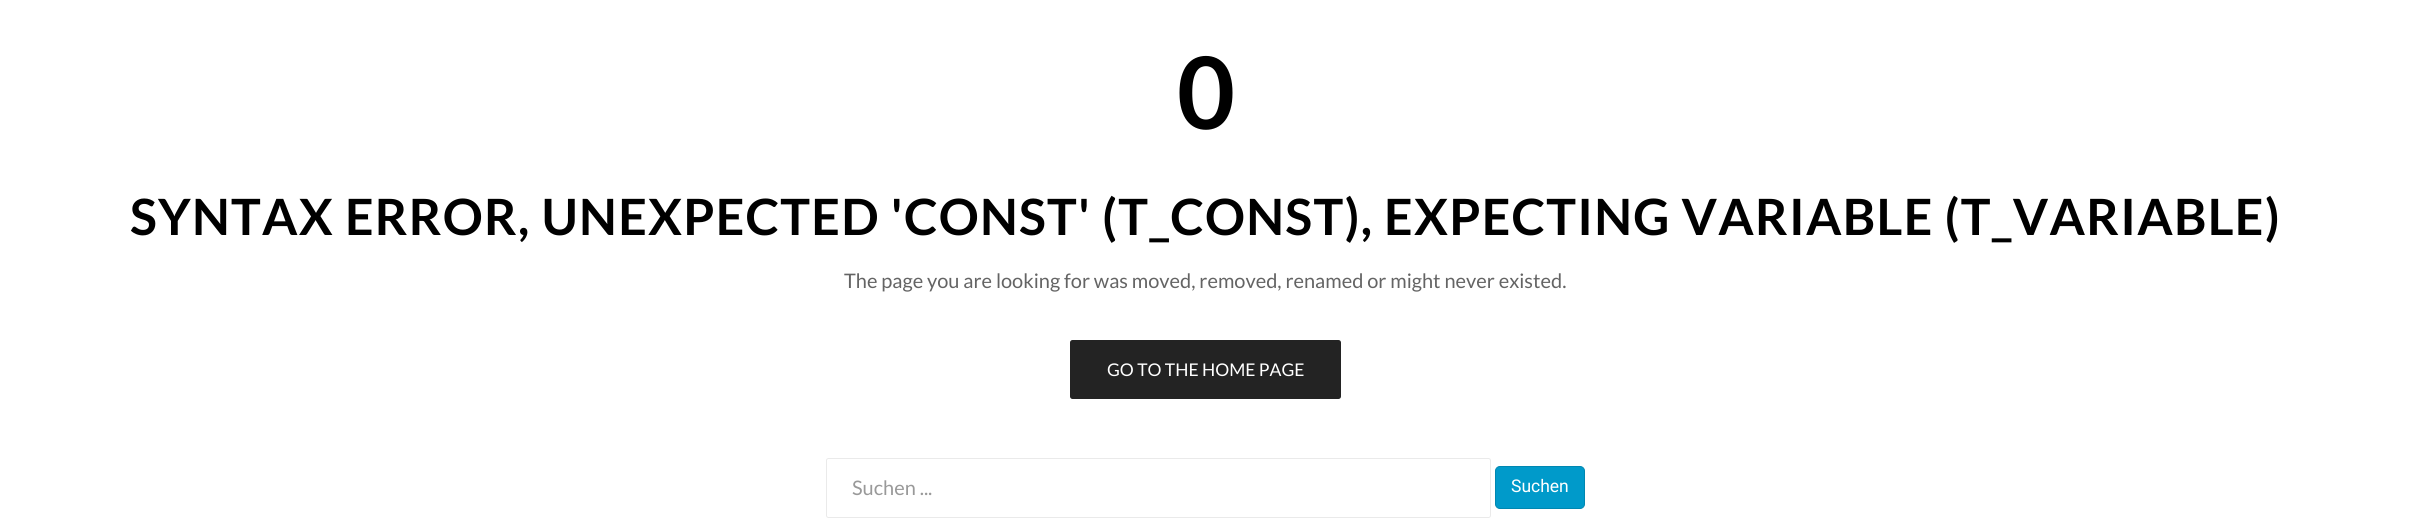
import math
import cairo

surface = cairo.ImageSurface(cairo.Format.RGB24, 2411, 532)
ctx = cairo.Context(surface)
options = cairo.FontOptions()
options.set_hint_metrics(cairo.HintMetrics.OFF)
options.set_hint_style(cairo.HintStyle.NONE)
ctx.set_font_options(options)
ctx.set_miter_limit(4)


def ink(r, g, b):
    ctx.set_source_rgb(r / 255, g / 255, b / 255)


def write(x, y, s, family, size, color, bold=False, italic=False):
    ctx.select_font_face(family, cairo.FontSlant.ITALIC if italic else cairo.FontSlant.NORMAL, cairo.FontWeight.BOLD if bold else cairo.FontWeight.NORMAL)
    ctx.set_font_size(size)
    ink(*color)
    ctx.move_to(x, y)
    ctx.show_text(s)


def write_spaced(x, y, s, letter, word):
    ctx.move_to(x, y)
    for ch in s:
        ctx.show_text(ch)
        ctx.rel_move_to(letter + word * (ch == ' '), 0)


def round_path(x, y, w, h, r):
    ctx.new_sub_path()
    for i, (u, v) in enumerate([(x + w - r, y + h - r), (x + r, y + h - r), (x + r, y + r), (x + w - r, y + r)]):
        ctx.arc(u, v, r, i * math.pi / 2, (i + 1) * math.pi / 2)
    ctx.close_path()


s1 = dict(family="Lato", size=100, color=(0, 0, 0), bold=True)
s2 = dict(family="Lato", size=20, color=(100, 100, 100))
s3 = dict(family="Lato", size=17.5, color=(255, 255, 255))
s4 = dict(family="Lato", size=20, color=(153, 153, 153))
s5 = dict(family="Roboto", size=17.5, color=(255, 255, 255))

ink(255, 255, 255)
ctx.paint()
write(1177, 129, "0", **s1)
ctx.set_font_size(50)
write_spaced(130, 235, "SYNTAX ERROR, UNEXPECTED 'CONST' (T_CONST), EXPECTING VARIABLE (T_VARIABLE)", 1.25, 0)
write(844, 288, "The page you are looking for was moved, removed, renamed or might never existed.", **s2)
ink(35, 35, 35)
round_path(1070, 340, 271, 59, 2.5)
ctx.fill()
write(1107, 376, "GO TO THE HOME PAGE", **s3)
round_path(826.5, 458.5, 664, 59, 2)
ink(234, 234, 234)
ctx.set_line_width(1)
ctx.stroke()
write(852, 495, "Suchen ...", **s4)
ink(0, 154, 202)
round_path(1495.5, 466.5, 89, 42, 4.5)
ctx.fill_preserve()
ink(0, 135, 177)
ctx.stroke()
write(1511, 492, "Suchen", **s5)
surface.write_to_png("screenshot.png")
